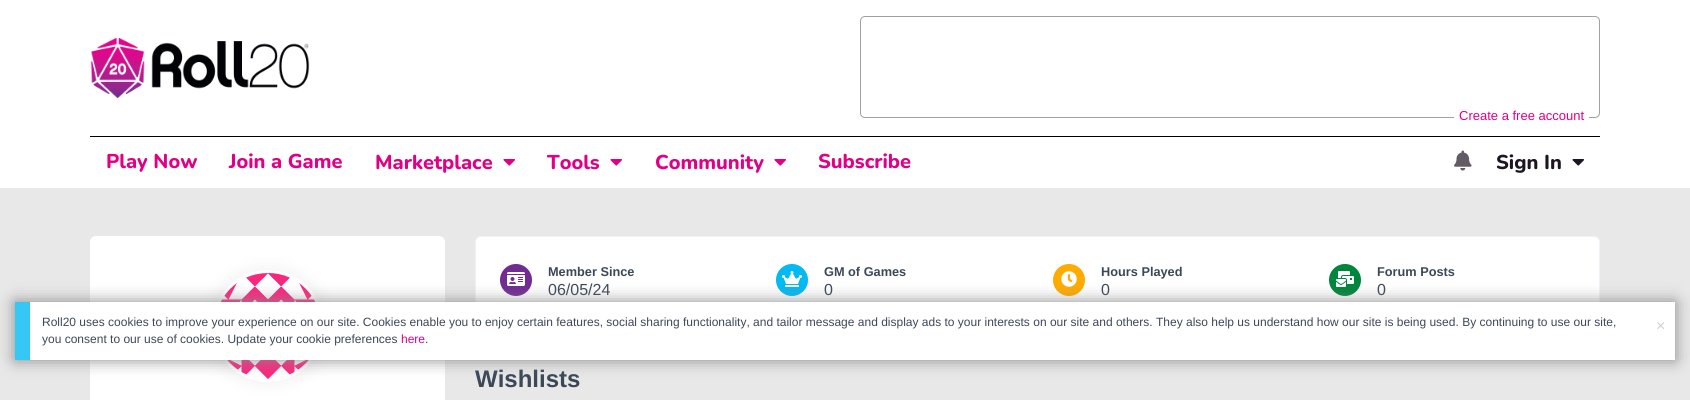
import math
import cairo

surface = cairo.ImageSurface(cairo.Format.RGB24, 1690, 400)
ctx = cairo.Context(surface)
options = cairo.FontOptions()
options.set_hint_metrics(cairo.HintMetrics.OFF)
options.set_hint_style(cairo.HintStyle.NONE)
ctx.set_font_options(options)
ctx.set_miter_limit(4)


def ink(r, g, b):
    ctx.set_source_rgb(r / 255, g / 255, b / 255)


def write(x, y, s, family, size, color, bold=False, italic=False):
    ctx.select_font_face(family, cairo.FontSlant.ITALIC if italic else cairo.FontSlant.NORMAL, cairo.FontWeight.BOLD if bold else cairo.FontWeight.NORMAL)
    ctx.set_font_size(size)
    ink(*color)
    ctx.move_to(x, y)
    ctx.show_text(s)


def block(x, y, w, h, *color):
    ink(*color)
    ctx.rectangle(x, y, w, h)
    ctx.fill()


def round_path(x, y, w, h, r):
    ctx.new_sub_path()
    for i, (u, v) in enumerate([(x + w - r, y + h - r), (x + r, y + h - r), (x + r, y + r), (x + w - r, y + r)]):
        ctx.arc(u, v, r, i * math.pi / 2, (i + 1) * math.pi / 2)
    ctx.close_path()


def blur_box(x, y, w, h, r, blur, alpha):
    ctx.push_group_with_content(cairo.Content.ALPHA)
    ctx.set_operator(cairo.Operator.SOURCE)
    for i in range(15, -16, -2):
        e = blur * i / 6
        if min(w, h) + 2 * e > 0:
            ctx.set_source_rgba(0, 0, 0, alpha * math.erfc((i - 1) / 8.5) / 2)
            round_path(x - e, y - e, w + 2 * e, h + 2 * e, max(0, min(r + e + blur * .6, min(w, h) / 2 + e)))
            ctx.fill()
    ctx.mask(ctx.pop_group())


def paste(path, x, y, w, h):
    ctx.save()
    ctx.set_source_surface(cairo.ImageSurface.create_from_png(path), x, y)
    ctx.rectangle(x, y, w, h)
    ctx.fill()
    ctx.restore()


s1 = dict(family="Liberation Sans", size=13, color=(225, 0, 133))
s2 = dict(family="Nunito ExtraBold", size=20, color=(225, 0, 133))
s3 = dict(family="Nunito ExtraBold", size=20, color=(30, 21, 35))
s4 = dict(family="Liberation Sans", size=12.75, color=(60, 72, 88), bold=True)
s5 = dict(family="Liberation Sans", size=16, color=(60, 72, 88))
s6 = dict(family="Liberation Sans", size=24, color=(60, 72, 88), bold=True)
s7 = dict(family="Liberation Sans", size=12, color=(60, 72, 88))
s8 = dict(family="Liberation Sans", size=12, color=(225, 0, 133))
s9 = dict(family="Liberation Sans", size=16, color=(209, 209, 209))

ink(255, 255, 255)
ctx.paint()
paste("pic1.png", 90, 38, 220, 60)
round_path(860.5, 16.5, 739, 101, 4.5)
ink(161, 161, 161)
ctx.set_line_width(1)
ctx.stroke()
block(1454, 117, 135, 1, 255, 255, 255)
write(1459, 120, "Create a free account", **s1)
block(90, 136, 1510, 1, 0, 0, 0)
write(106, 168, "Play Now", **s2)
write(229, 168, "Join a Game", **s2)
write(375, 169, "Marketplace", **s2)
paste("pic2.png", 503, 159, 12, 7)
write(547, 169, "Tools", **s2)
paste("pic2.png", 610, 159, 12, 7)
write(655, 169, "Community", **s2)
paste("pic2.png", 774, 159, 12, 7)
write(818, 168, "Subscribe", **s2)
paste("pic3.png", 1454, 150, 18, 21)
write(1496, 169, "Sign In", **s3)
paste("pic4.png", 1572, 159, 12, 7)
block(0, 188, 1690, 212, 233, 232, 233)
ink(255, 255, 255)
round_path(90, 236, 355, 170, 6)
ctx.fill()
ink(31, 45, 61)
blur_box(212, 270, 112, 112, 56, 10, 0.08)
ctx.arc(268, 326, 54.5, 0, 2 * math.pi)
ink(255, 255, 255)
ctx.set_line_width(3)
ctx.stroke()
paste("pic5.png", 220, 273, 96, 106)
round_path(475.5, 236.5, 1124, 88, 5.5)
ctx.fill_preserve()
ink(239, 242, 247)
ctx.set_line_width(1)
ctx.stroke()
ink(112, 44, 145)
ctx.arc(516, 280, 16, 0, 2 * math.pi)
ctx.fill()
paste("pic6.png", 507, 272, 18, 14)
write(548, 276, "Member Since", **s4)
write(548, 295, "06/05/24", **s5)
ink(2, 186, 242)
ctx.new_path()
ctx.arc(792, 280, 16, 0, 2 * math.pi)
ctx.fill()
paste("pic7.png", 782, 271, 20, 16)
write(824, 276, "GM of Games", **s4)
write(824, 295, "0", **s5)
ink(255, 171, 0)
ctx.new_path()
ctx.arc(1069, 280, 16, 0, 2 * math.pi)
ctx.fill()
paste("pic8.png", 1061, 271, 16, 16)
write(1101, 276, "Hours Played", **s4)
write(1101, 295, "0", **s5)
ink(0, 133, 60)
ctx.new_path()
ctx.arc(1345, 280, 16, 0, 2 * math.pi)
ctx.fill()
paste("pic9.png", 1336, 271, 18, 16)
write(1377, 276, "Forum Posts", **s4)
write(1377, 295, "0", **s5)
write(475, 387, "Wishlists", **s6)
ink(136, 136, 136)
blur_box(15, 302, 1660, 58, 0, 8, 1)
block(30, 302, 1645, 58, 255, 255, 255)
block(15, 302, 15, 58, 53, 200, 245)
write(42, 326, "Roll20 uses cookies to improve your experience on our site. Cookies enable you to enjoy certain features, social sharing functionality, and tailor message and display ads to your interests on our site and others. They also help us understand how our site is being used. By continuing to use our site,", **s7)
write(42, 343, "you consent to our use of cookies. Update your cookie preferences", **s7)
write(401, 343, "here", **s8)
write(425, 343, ".", **s7)
write(1656, 331, "×", **s9)
surface.write_to_png("screenshot.png")
